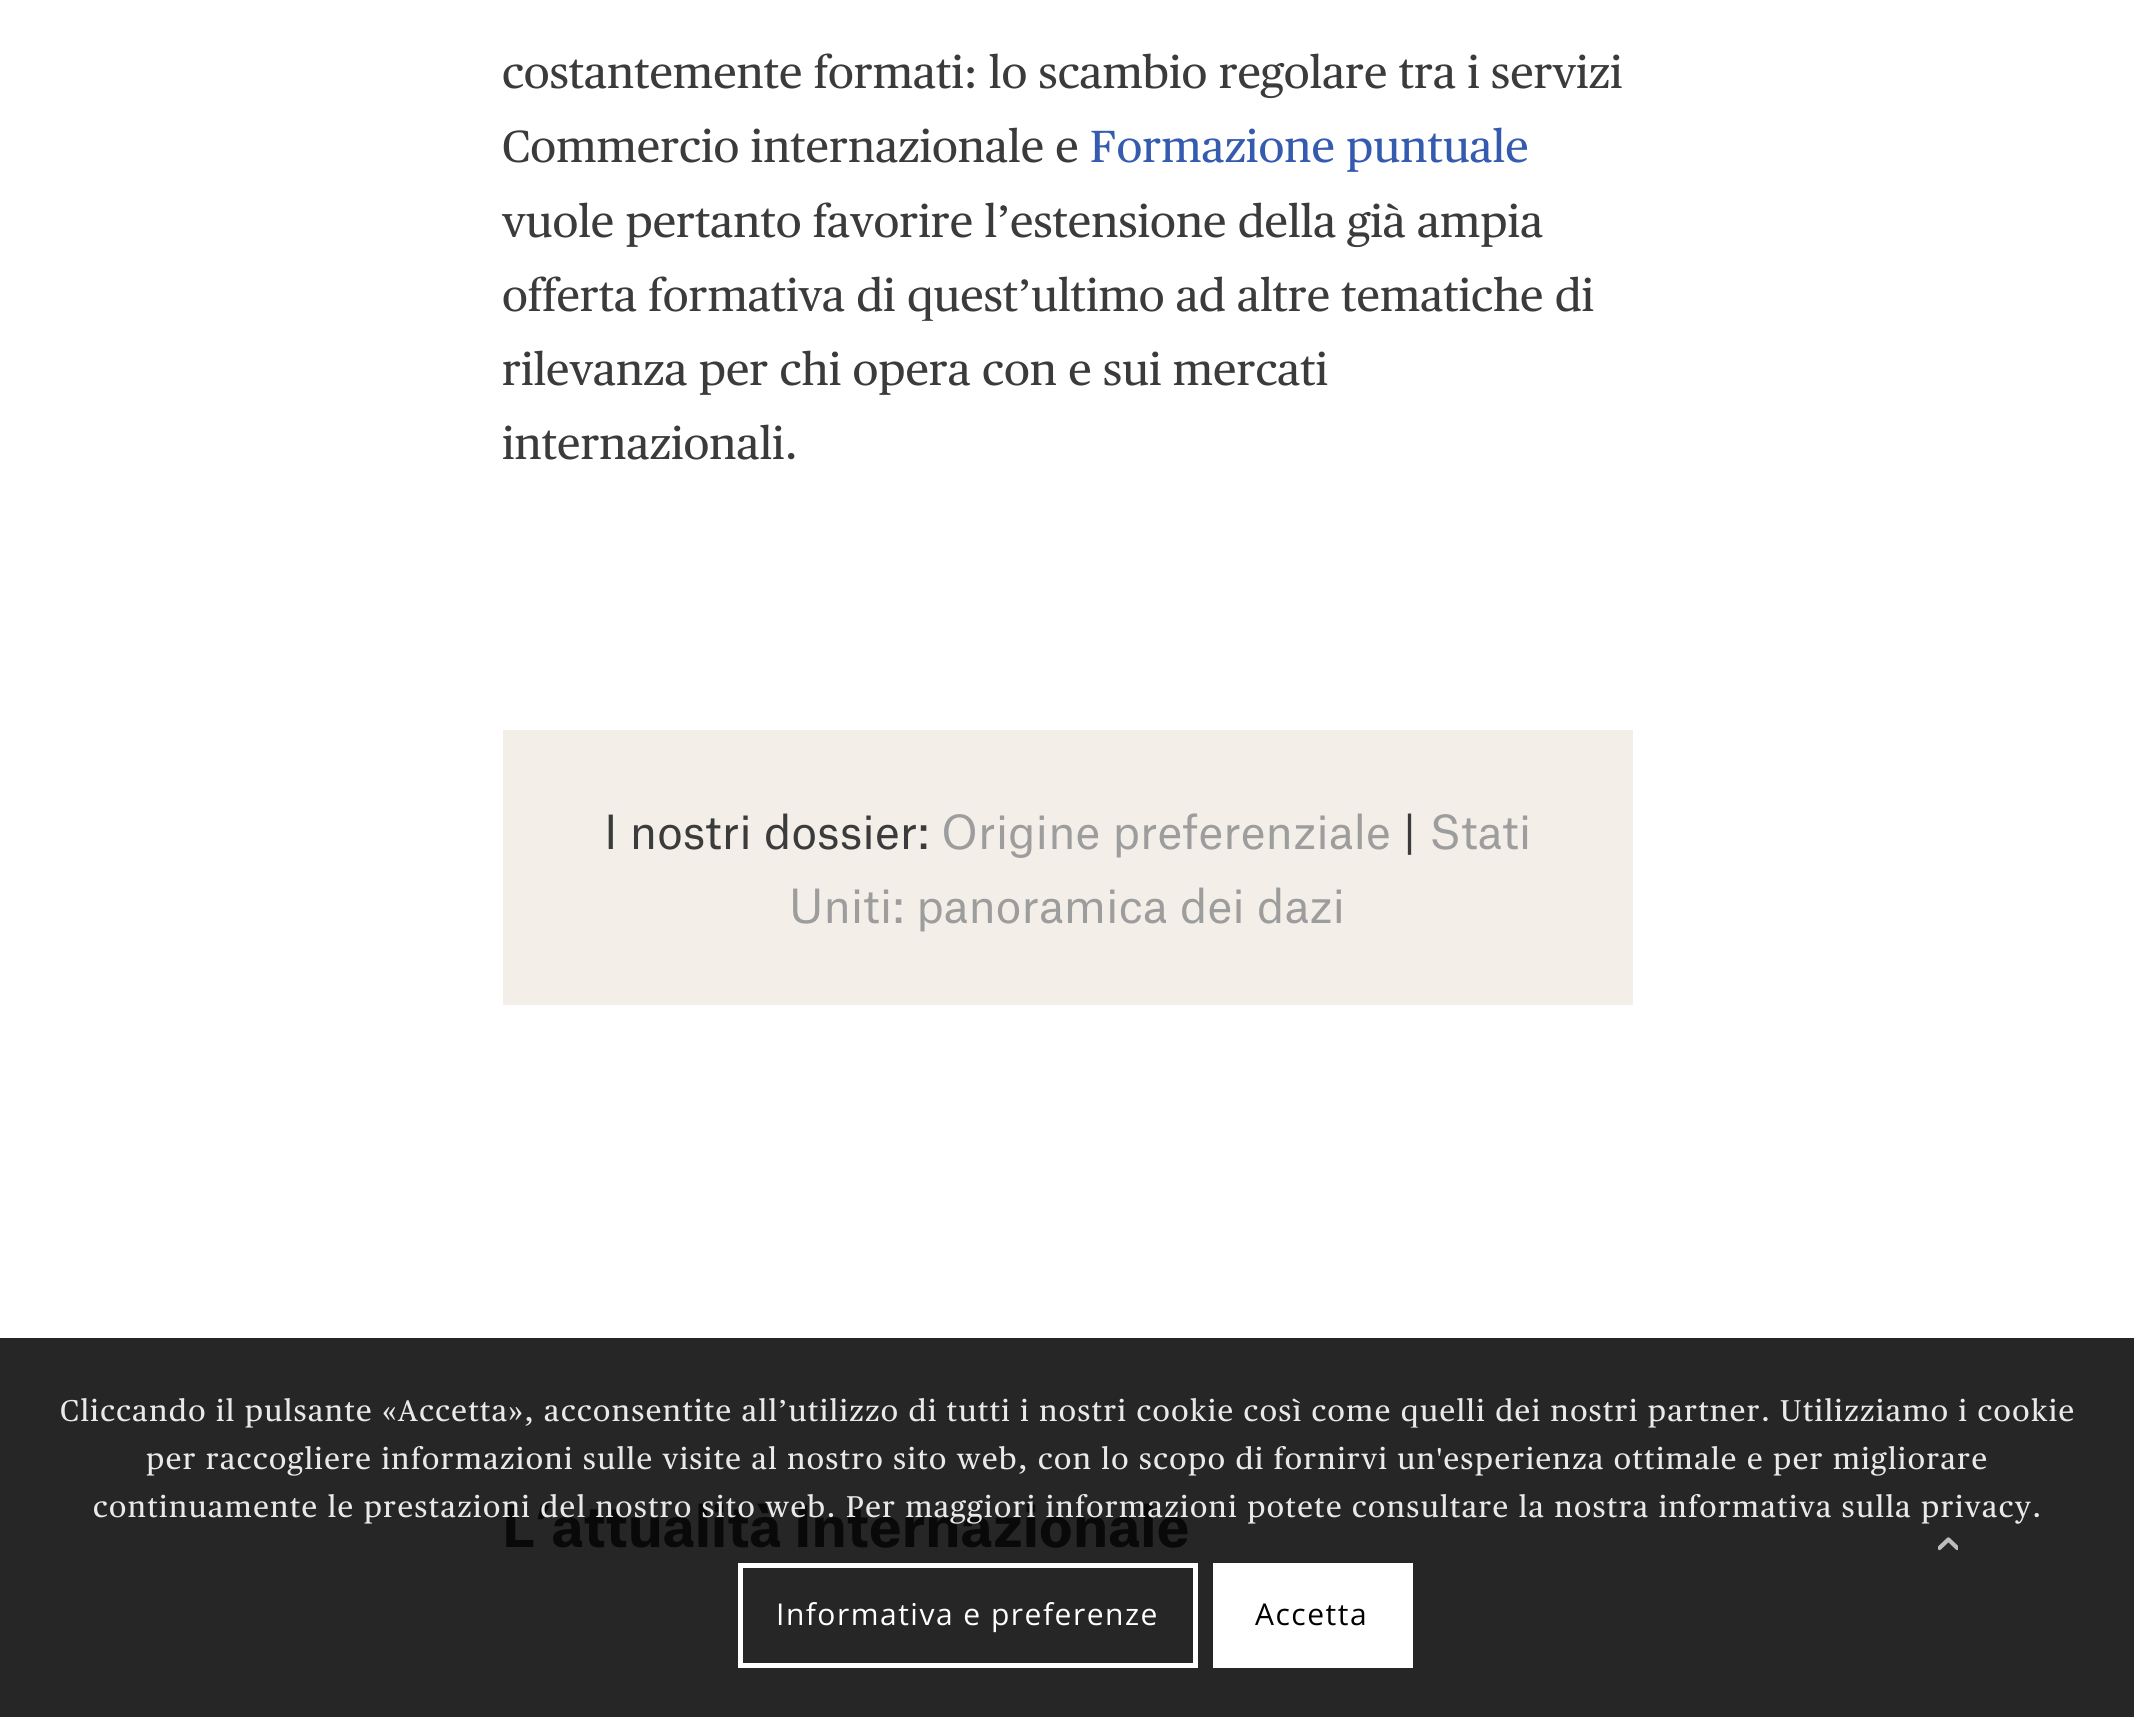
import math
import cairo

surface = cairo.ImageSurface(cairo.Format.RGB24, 2134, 1717)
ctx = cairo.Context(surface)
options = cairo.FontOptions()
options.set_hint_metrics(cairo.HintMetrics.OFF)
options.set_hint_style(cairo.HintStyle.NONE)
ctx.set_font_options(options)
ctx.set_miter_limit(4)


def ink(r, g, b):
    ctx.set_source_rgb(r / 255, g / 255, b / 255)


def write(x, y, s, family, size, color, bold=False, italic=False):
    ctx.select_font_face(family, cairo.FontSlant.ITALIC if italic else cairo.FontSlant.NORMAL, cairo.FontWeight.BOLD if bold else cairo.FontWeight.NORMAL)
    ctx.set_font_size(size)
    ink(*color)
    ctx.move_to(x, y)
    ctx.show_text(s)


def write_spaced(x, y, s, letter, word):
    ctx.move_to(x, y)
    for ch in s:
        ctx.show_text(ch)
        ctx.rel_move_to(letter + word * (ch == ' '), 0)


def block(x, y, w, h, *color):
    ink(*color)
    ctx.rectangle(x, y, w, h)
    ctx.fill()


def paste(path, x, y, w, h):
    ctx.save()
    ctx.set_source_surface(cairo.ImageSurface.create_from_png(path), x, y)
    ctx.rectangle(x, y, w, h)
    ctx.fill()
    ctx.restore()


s1 = dict(family="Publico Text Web", size=45, color=(59, 59, 59))
s2 = dict(family="Publico Text Web", size=45, color=(53, 91, 175))
s3 = dict(family="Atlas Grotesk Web", size=45, color=(59, 59, 59))
s4 = dict(family="Atlas Grotesk Web", size=45, color=(157, 157, 157))
s5 = dict(family="Atlas Grotesk Web", size=55, color=(9, 9, 9), bold=True)

ink(255, 255, 255)
ctx.paint()
block(0, 1338, 2134, 379, 38, 38, 38)
write(502, 88, "costantemente formati: lo scambio regolare tra i servizi", **s1)
write(502, 162, "Commercio internazionale e", **s1)
write(1090, 162, "Formazione puntuale", **s2)
write(502, 237, "vuole pertanto favorire l’estensione della già ampia", **s1)
write(502, 311, "offerta formativa di quest’ultimo ad altre tematiche di", **s1)
write(502, 385, "rilevanza per chi opera con e sui mercati", **s1)
write(502, 459, "internazionali.", **s1)
block(503, 730, 1130, 275, 244, 238, 232)
write(604, 849, "I nostri dossier:", **s3)
write(941, 849, "Origine preferenziale", **s4)
write(1403, 849, "|", **s3)
write(1429, 849, "Stati", **s4)
write(789, 923, "Uniti: panoramica dei dazi", **s4)
write(502, 1547, "L’attualità Internazionale", **s5)
ctx.select_font_face("Publico Text Web")
ctx.set_font_size(30)
ink(233, 233, 233)
write_spaced(60, 1421, "Cliccando il pulsante «Accetta», acconsentite all’utilizzo di tutti i nostri cookie così come quelli dei nostri partner. Utilizziamo i cookie", 1.5, 0)
write_spaced(146, 1469, "per raccogliere informazioni sulle visite al nostro sito web, con lo scopo di fornirvi un'esperienza ottimale e per migliorare", 1.5, 0)
write_spaced(93, 1517, "continuamente le prestazioni del nostro sito web. Per maggiori informazioni potete consultare la nostra informativa sulla privacy.", 1.5, 0)
ctx.rectangle(740.5, 1565.5, 455, 100)
ink(255, 255, 255)
ctx.set_line_width(5)
ctx.stroke()
ctx.select_font_face("Open Sans")
write_spaced(776, 1625, "Informativa e preferenze", 1.5, 0)
block(1213, 1563, 200, 105, 255, 255, 255)
ink(0, 0, 0)
write_spaced(1255, 1625, "Accetta", 1.5, 0)
paste("pic1.png", 1938, 1537, 20, 14)
surface.write_to_png("screenshot.png")
